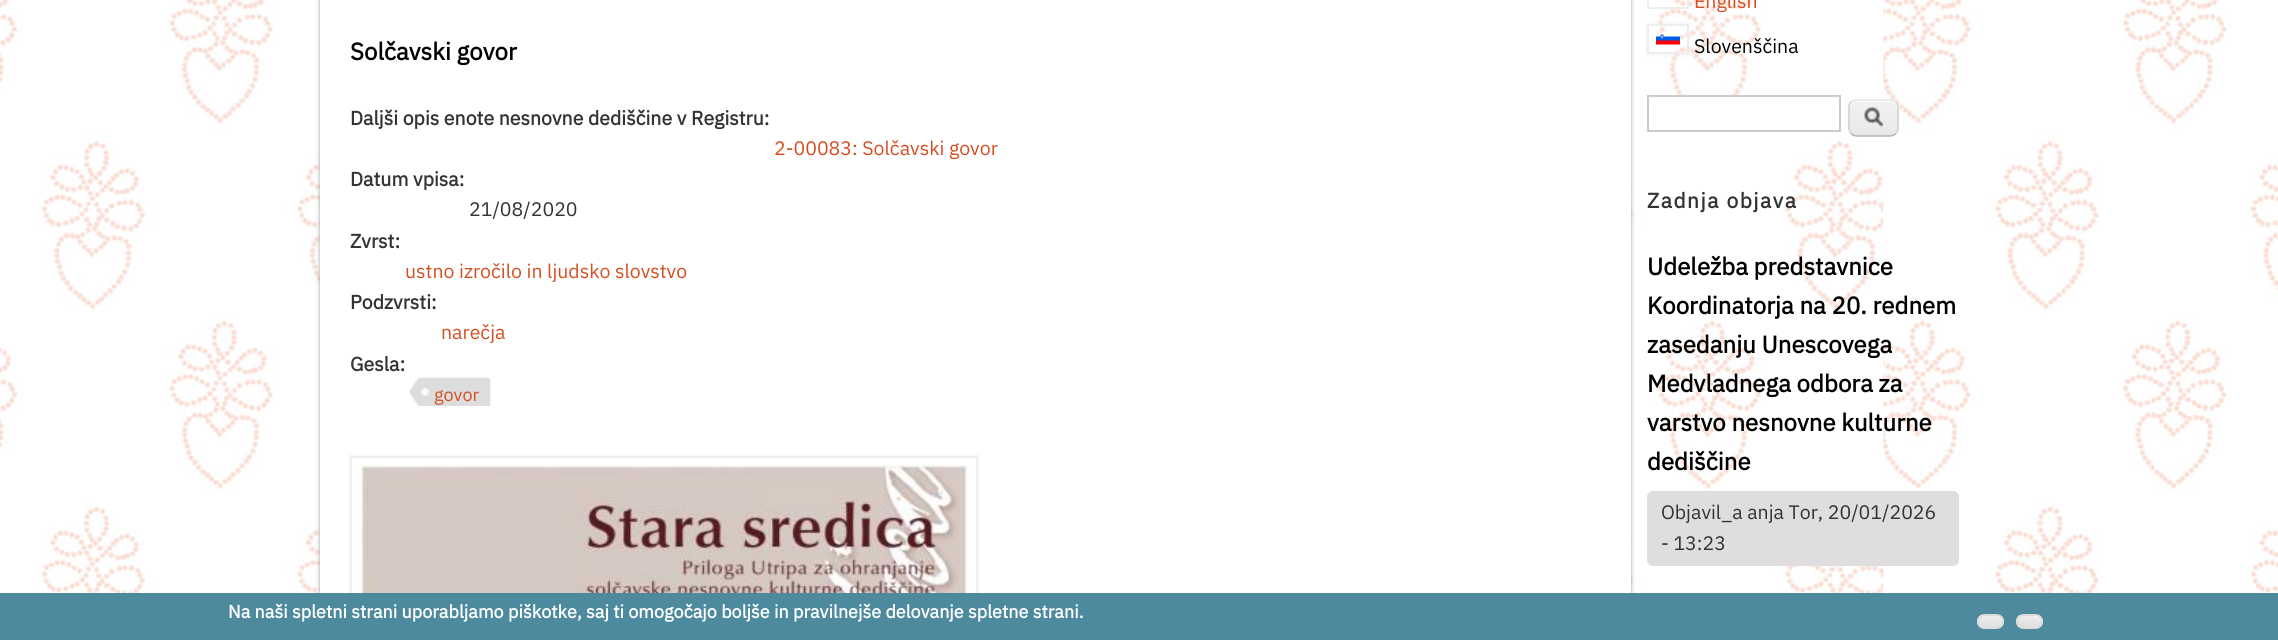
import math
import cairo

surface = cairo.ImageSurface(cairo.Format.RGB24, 2278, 640)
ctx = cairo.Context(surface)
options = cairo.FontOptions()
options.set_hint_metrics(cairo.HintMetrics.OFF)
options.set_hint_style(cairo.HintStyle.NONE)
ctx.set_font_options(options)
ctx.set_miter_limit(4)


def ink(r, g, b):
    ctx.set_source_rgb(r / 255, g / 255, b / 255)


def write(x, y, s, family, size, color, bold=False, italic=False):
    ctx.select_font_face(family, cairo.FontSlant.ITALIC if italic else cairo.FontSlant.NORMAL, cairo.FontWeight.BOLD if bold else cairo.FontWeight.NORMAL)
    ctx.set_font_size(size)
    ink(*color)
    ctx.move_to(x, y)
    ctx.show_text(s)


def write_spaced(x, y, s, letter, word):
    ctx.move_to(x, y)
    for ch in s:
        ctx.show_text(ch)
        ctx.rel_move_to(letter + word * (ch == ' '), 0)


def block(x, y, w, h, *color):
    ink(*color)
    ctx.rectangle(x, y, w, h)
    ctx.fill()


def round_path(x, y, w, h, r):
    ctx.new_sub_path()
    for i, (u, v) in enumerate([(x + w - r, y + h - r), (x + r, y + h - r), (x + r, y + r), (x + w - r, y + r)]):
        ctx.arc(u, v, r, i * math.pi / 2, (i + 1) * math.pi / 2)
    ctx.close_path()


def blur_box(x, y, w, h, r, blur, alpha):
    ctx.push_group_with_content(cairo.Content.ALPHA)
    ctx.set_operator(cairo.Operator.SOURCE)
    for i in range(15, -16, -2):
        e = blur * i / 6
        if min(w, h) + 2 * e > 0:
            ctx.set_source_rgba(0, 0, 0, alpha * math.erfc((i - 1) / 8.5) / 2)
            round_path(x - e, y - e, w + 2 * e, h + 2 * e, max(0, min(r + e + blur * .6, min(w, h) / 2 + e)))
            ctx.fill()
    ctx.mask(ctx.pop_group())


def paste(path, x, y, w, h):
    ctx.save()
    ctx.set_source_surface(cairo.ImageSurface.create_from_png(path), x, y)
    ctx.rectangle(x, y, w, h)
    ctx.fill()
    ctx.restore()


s1 = dict(family="IBM Plex Sans", size=24, color=(0, 0, 0), bold=True)
s2 = dict(family="IBM Plex Sans", size=19.5, color=(51, 51, 51), bold=True)
s3 = dict(family="IBM Plex Sans", size=19.5, color=(213, 78, 33))
s4 = dict(family="IBM Plex Sans", size=19.5, color=(51, 51, 51))
s5 = dict(family="IBM Plex Sans", size=18, color=(213, 78, 33))
s6 = dict(family="IBM Plex Sans", size=19.5, color=(0, 0, 0))
s7 = dict(family="IBM Plex Sans", size=18, color=(255, 255, 255), bold=True)

ink(255, 255, 255)
ctx.paint()
paste("pic1.png", 0, 0, 2278, 593)
ink(153, 153, 153)
blur_box(320, -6, 1311, 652, 0, 2, 1)
block(320, 0, 1311, 593, 255, 255, 255)
write(350, 60, "Solčavski govor", **s1)
write(350, 125, "Daljši opis enote nesnovne dediščine v Registru:", **s2)
write(774, 155, "2-00083: Solčavski govor", **s3)
write(350, 186, "Datum vpisa:", **s2)
write(469, 216, "21/08/2020", **s4)
write(350, 248, "Zvrst:", **s2)
write(405, 278, "ustno izročilo in ljudsko slovstvo", **s3)
write(350, 309, "Podzvrsti:", **s2)
write(441, 339, "narečja", **s3)
write(350, 371, "Gesla:", **s2)
paste("pic2.png", 409, 377, 82, 29)
write(434, 401, "govor", **s5)
ctx.save()
ctx.set_fill_rule(cairo.FillRule.EVEN_ODD)
ctx.new_path()
ctx.move_to(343, 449)
ctx.line_to(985, 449)
ctx.line_to(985, 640)
ctx.line_to(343, 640)
ctx.close_path()
ctx.move_to(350, 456)
ctx.line_to(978, 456)
ctx.line_to(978, 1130)
ctx.line_to(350, 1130)
ctx.close_path()
ctx.clip()
ink(238, 238, 238)
blur_box(350, 456, 628, 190, 0, 2, 1)
ctx.restore()
ctx.rectangle(351, 457, 626, 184)
ink(238, 238, 238)
ctx.stroke()
paste("pic3.png", 358, 464, 611, 129)
write(1694, 8, "English", **s3)
ctx.rectangle(1648, -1, 40, 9)
ink(238, 238, 238)
ctx.stroke()
ctx.save()
ctx.set_fill_rule(cairo.FillRule.EVEN_ODD)
ctx.new_path()
ctx.move_to(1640, 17)
ctx.line_to(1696, 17)
ctx.line_to(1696, 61)
ctx.line_to(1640, 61)
ctx.close_path()
ctx.move_to(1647, 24)
ctx.line_to(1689, 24)
ctx.line_to(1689, 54)
ctx.line_to(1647, 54)
ctx.close_path()
ctx.clip()
ink(238, 238, 238)
blur_box(1647, 24, 42, 30, 0, 2, 1)
ctx.restore()
ctx.rectangle(1648, 25, 40, 28)
ctx.stroke()
paste("pic4.png", 1656, 32, 24, 13)
write(1694, 53, "Slovenščina", **s6)
block(1679, 97, 61, 33, 255, 255, 255)
ctx.rectangle(1648, 96, 192, 35)
ink(204, 204, 204)
ctx.stroke()
paste("pic5.png", 1848, 100, 51, 36)
ink(255, 255, 255)
ctx.new_path()
ctx.move_to(1857, 102)
ctx.line_to(1890, 102)
ctx.curve_to(1894, 102, 1898, 105, 1898, 110)
ctx.curve_to(1898, 101, 1892, 101, 1885, 101)
ctx.line_to(1863, 101)
ctx.curve_to(1856, 101, 1850, 101, 1850, 110)
ctx.curve_to(1850, 105, 1853, 102, 1857, 102)
ctx.close_path()
ctx.fill()
ctx.new_path()
ctx.move_to(1851, 102)
ctx.curve_to(1852.5, 100.5, 1855, 100, 1857, 100)
ctx.line_to(1890, 100)
ctx.curve_to(1892, 100, 1894.5, 100.5, 1896, 102)
ink(228, 228, 228)
ctx.set_line_width(1.5)
ctx.stroke()
ctx.new_path()
ctx.move_to(1896, 102)
ctx.curve_to(1897.5, 103.5, 1898, 106, 1898, 108)
ctx.line_to(1898, 127.5)
ctx.curve_to(1898, 129.5, 1897.5, 132, 1896, 133.5)
ink(210, 210, 210)
ctx.stroke()
ctx.new_path()
ctx.move_to(1896, 133.5)
ctx.curve_to(1894.5, 135, 1892, 136, 1890, 136)
ctx.line_to(1857, 136)
ctx.curve_to(1855, 136, 1852.5, 135, 1851, 133.5)
ink(180, 180, 180)
ctx.stroke()
ctx.new_path()
ctx.move_to(1851, 133.5)
ctx.curve_to(1849.5, 132, 1849, 129.5, 1849, 127.5)
ctx.line_to(1849, 108)
ctx.curve_to(1849, 106, 1849.5, 103.5, 1851, 102)
ink(210, 210, 210)
ctx.stroke()
ctx.select_font_face("IBM Plex Sans", cairo.FontSlant.NORMAL, cairo.FontWeight.BOLD)
ctx.set_font_size(21)
ink(51, 51, 51)
write_spaced(1647, 208, "Zadnja objava", 1.5, 0)
write(1647, 275, "Udeležba predstavnice", **s1)
write(1647, 314, "Koordinatorja na 20. rednem", **s1)
write(1647, 353, "zasedanju Unescovega", **s1)
write(1647, 392, "Medvladnega odbora za", **s1)
write(1647, 431, "varstvo nesnovne kulturne", **s1)
write(1647, 470, "dediščine", **s1)
ink(223, 221, 221)
round_path(1647, 491, 312, 75, 6)
ctx.fill()
write(1661, 519, "Objavil_a anja Tor, 20/01/2026", **s4)
write(1661, 550, "- 13:23", **s4)
block(0, 593, 2278, 47, 77, 138, 158)
write(228, 618, "Na naši spletni strani uporabljamo piškotke, saj ti omogočajo boljše in pravilnejše delovanje spletne strani.", **s7)
ctx.save()
round_path(1977, 614, 27, 15, 7.5)
ctx.clip()
gradient = cairo.LinearGradient(1979, 615, 1979, 627)
gradient.add_color_stop_rgba(0.05, 0.929, 0.929, 0.929, 1)
gradient.add_color_stop_rgba(1, 0.875, 0.875, 0.875, 1)
ctx.set_source(gradient)
ctx.rectangle(1977, 615, 27, 12)
ctx.fill()
ctx.restore()
ctx.new_path()
ctx.move_to(1984, 616)
ctx.line_to(1993.5, 616)
ctx.curve_to(1997, 616.5, 2001.5, 616.5, 2002, 621)
ctx.line_to(2002, 624.5)
ctx.curve_to(2004.5, 621, 2002.5, 616, 1998, 615)
ctx.line_to(1991, 615)
ctx.curve_to(1986.5, 615, 1980.5, 614, 1979, 619.5)
ctx.curve_to(1980, 617.5, 1981.5, 616, 1984, 616)
ctx.close_path()
ctx.fill()
round_path(1978, 615, 25, 13, 6.5)
ink(220, 220, 220)
ctx.set_line_width(2)
ctx.stroke()
ctx.save()
round_path(2016, 614, 27, 15, 7.5)
ctx.clip()
gradient = cairo.LinearGradient(2018, 615, 2018, 627)
gradient.add_color_stop_rgba(0.05, 0.929, 0.929, 0.929, 1)
gradient.add_color_stop_rgba(1, 0.875, 0.875, 0.875, 1)
ctx.set_source(gradient)
ctx.rectangle(2016, 615, 27, 12)
ctx.fill()
ctx.restore()
ink(255, 255, 255)
ctx.new_path()
ctx.move_to(2024, 616)
ctx.line_to(2032.5, 616)
ctx.curve_to(2036, 616.5, 2040.5, 616.5, 2041, 621)
ctx.line_to(2041, 624.5)
ctx.curve_to(2043.5, 621, 2041.5, 616, 2037, 615)
ctx.line_to(2030, 615)
ctx.curve_to(2025.5, 615, 2017.5, 614, 2018, 621.5)
ctx.curve_to(2018, 618.5, 2020, 616, 2024, 616)
ctx.close_path()
ctx.fill()
round_path(2017, 615, 25, 13, 6.5)
ink(220, 220, 220)
ctx.stroke()
surface.write_to_png("screenshot.png")
